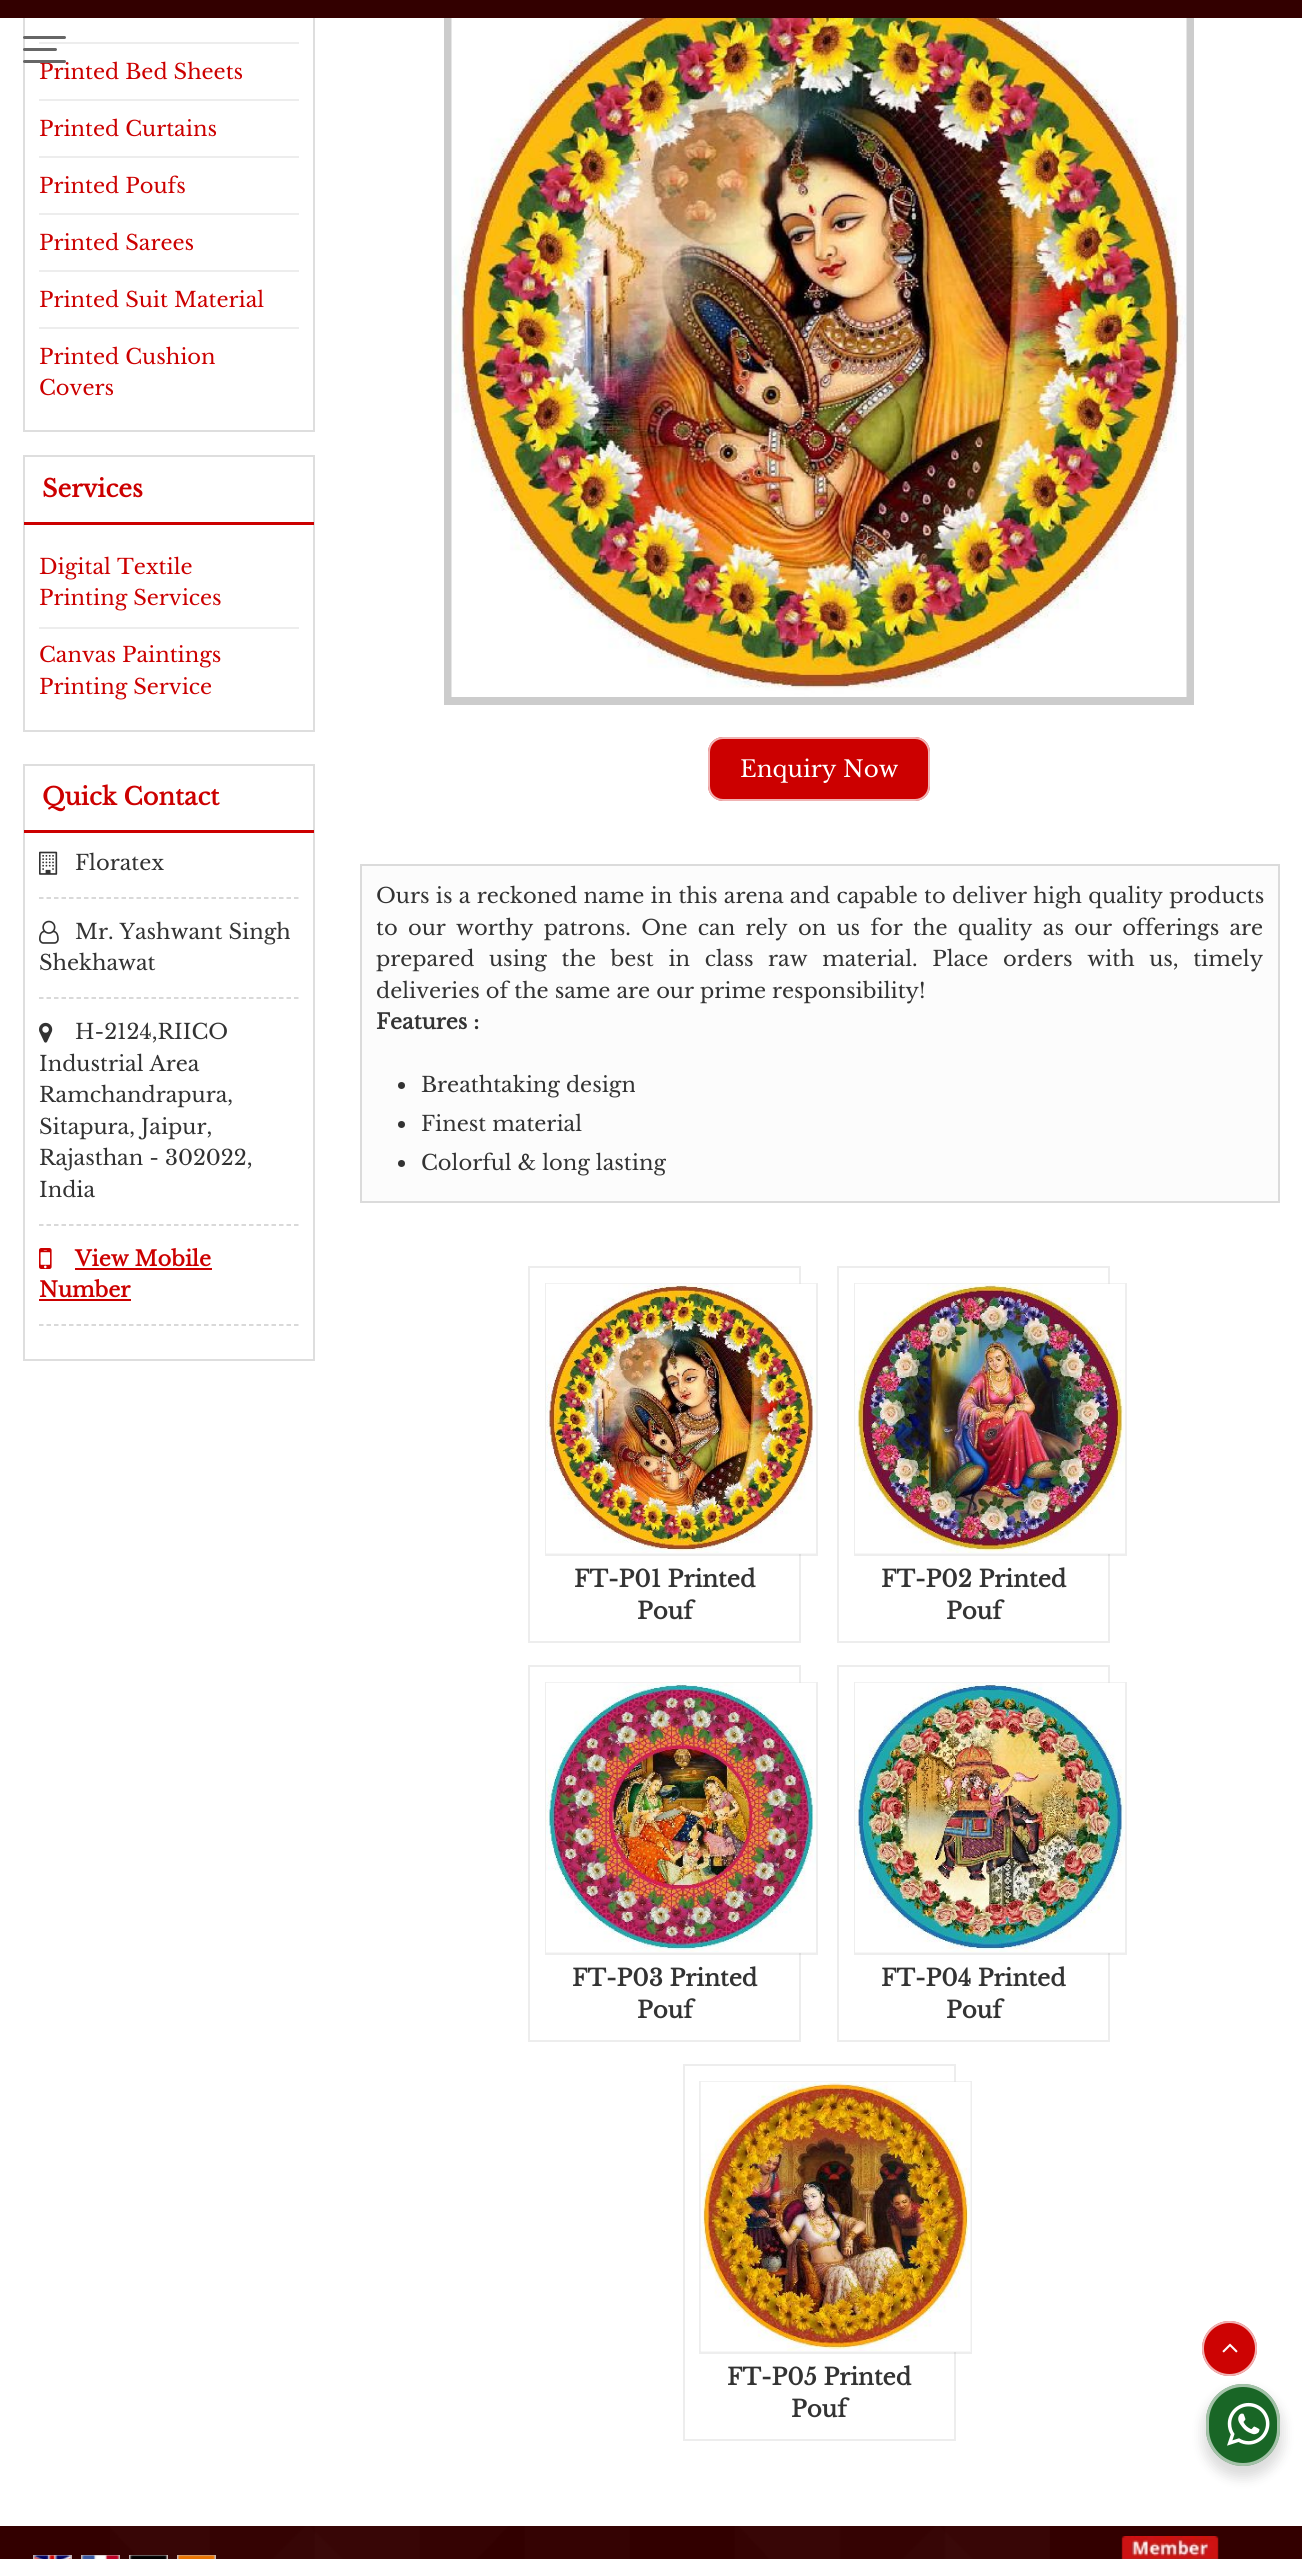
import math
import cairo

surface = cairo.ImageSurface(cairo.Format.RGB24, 1302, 2559)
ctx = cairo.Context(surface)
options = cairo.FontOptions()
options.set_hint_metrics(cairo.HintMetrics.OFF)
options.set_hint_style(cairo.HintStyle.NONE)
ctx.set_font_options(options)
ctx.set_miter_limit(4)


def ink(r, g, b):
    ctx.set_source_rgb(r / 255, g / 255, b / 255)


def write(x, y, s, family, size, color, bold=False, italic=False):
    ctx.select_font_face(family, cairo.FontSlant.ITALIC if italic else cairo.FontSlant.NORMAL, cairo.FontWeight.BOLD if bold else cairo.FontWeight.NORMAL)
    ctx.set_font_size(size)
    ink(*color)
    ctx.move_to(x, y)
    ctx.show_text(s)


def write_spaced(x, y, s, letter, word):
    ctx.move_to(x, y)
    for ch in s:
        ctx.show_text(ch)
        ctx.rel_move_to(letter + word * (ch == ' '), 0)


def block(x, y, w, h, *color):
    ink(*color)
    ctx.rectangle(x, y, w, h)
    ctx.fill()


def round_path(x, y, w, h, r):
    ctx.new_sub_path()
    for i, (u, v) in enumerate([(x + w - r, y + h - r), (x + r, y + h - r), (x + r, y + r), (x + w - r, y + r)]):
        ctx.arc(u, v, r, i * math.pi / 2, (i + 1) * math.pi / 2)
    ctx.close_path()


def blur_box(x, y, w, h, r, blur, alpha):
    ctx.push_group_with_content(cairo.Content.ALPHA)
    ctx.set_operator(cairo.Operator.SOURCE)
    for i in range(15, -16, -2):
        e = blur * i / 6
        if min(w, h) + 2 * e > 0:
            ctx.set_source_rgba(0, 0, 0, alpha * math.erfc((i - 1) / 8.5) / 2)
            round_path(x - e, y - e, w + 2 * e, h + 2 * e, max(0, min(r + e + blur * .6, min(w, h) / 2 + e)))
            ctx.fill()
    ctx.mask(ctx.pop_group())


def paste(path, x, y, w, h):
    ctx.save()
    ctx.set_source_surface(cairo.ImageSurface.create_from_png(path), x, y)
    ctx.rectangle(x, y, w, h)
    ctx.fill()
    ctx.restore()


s1 = dict(family="Libre Baskerville", size=21, color=(204, 0, 0))
s2 = dict(family="Libre Baskerville", size=24, color=(204, 0, 0), bold=True)
s3 = dict(family="Libre Baskerville", size=21, color=(51, 51, 51))
s4 = dict(family="Libre Baskerville", size=21, color=(204, 0, 0), bold=True)
s5 = dict(family="Libre Baskerville", size=23, color=(255, 255, 255))
s6 = dict(family="Libre Baskerville", size=21, color=(51, 51, 51), bold=True)
s7 = dict(family="Libre Baskerville", size=23, color=(51, 51, 51), bold=True)

ink(255, 255, 255)
ctx.paint()
ctx.rectangle(24, -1, 290, 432)
ink(222, 222, 222)
ctx.stroke()
ctx.rectangle(448, -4, 742, 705)
ink(204, 204, 204)
ctx.set_line_width(8)
ctx.stroke()
block(0, 0, 1302, 18, 51, 0, 0)
ink(102, 102, 102)
round_path(23, 36, 43, 3, 1.5)
ctx.fill()
round_path(23, 48, 34, 3, 1.5)
ctx.fill()
write(39, 79, "Printed Bed Sheets", **s1)
ink(102, 102, 102)
round_path(23, 60, 43, 3, 1.5)
ctx.fill()
block(39, 42, 260, 2, 237, 237, 237)
block(39, 99, 260, 2, 237, 237, 237)
block(39, 156, 260, 2, 237, 237, 237)
write(39, 136, "Printed Curtains", **s1)
block(39, 213, 260, 2, 237, 237, 237)
write(39, 193, "Printed Poufs", **s1)
block(39, 270, 260, 2, 237, 237, 237)
write(39, 250, "Printed Sarees", **s1)
block(39, 327, 260, 2, 237, 237, 237)
write(39, 307, "Printed Suit Material", **s1)
write(39, 364, "Printed Cushion", **s1)
write(39, 395, "Covers", **s1)
ctx.rectangle(24, 456, 290, 275)
ink(222, 222, 222)
ctx.set_line_width(2)
ctx.stroke()
block(24, 522, 290, 3, 204, 0, 0)
write(42, 497, "Services", **s2)
block(39, 627, 260, 2, 237, 237, 237)
write(39, 574, "Digital Textile", **s1)
write(39, 605, "Printing Services", **s1)
write(39, 662, "Canvas Paintings", **s1)
write(39, 694, "Printing Service", **s1)
ctx.rectangle(24, 765, 290, 595)
ink(222, 222, 222)
ctx.stroke()
block(24, 830, 290, 3, 204, 0, 0)
write(42, 805, "Quick Contact", **s2)
paste("pic1.png", 39, 851, 19, 24)
write(75, 870, "Floratex", **s3)
ctx.new_path()
ctx.move_to(39, 898)
ctx.line_to(298.5, 898)
ink(204, 204, 204)
ctx.set_line_width(1.5)
ctx.set_dash([4.5, 3])
ctx.stroke()
paste("pic2.png", 39, 920, 20, 24)
write(75, 939, "Mr. Yashwant Singh", **s3)
write(39, 970, "Shekhawat", **s3)
ctx.new_path()
ctx.move_to(39, 998)
ctx.line_to(298.5, 998)
ink(204, 204, 204)
ctx.stroke()
paste("pic3.png", 39, 1022, 14, 21)
write(75, 1039, "H-2124,RIICO", **s3)
write(39, 1071, "Industrial Area", **s3)
write(39, 1102, "Ramchandrapura,", **s3)
write(39, 1134, "Sitapura, Jaipur,", **s3)
write(39, 1165, "Rajasthan - 302022,", **s3)
write(39, 1197, "India", **s3)
ctx.new_path()
ctx.move_to(39, 1225)
ctx.line_to(298.5, 1225)
ink(204, 204, 204)
ctx.stroke()
paste("pic4.png", 39, 1248, 13, 21)
write(75, 1266, "View Mobile", **s4)
block(75, 1268, 137, 2, 204, 0, 0)
write(39, 1297, "Number", **s4)
block(39, 1299, 92, 2, 204, 0, 0)
ctx.new_path()
ctx.move_to(39, 1325)
ctx.line_to(298.5, 1325)
ink(204, 204, 204)
ctx.stroke()
paste("pic5.png", 451, 18, 736, 679)
ink(204, 0, 0)
round_path(708, 737, 222, 64, 15)
ctx.fill()
round_path(709, 738, 220, 62, 14)
ctx.set_source_rgba(1, 1, 1, 0.7)
ctx.set_line_width(2)
ctx.set_dash([])
ctx.stroke()
write(740, 777, "Enquiry Now", **s5)
ink(252, 252, 252)
ctx.rectangle(361, 865, 918, 337)
ctx.fill_preserve()
ink(219, 219, 219)
ctx.stroke()
ctx.set_font_size(21)
ink(51, 51, 51)
write_spaced(376, 903, "Ours is a reckoned name in this arena and capable to deliver high quality products", 0, 0.25)
write_spaced(376, 935, "to our worthy patrons. One can rely on us for the quality as our offerings are", 0, 4.25)
write_spaced(376, 966, "prepared using the best in class raw material. Place orders with us, timely", 0, 8.6)
write(376, 998, "deliveries of the same are our prime responsibility!", **s3)
write(376, 1029, "Features :", **s6)
ctx.new_path()
ctx.arc(401.5, 1085.5, 3.5, 0, 2 * math.pi)
ctx.fill()
write(421, 1092, "Breathtaking design", **s3)
ctx.new_path()
ctx.arc(401.5, 1124.5, 3.5, 0, 2 * math.pi)
ctx.fill()
write(421, 1131, "Finest material", **s3)
ctx.new_path()
ctx.arc(401.5, 1163.5, 3.5, 0, 2 * math.pi)
ctx.fill()
write(421, 1170, "Colorful & long lasting", **s3)
ctx.rectangle(529, 1267, 271, 375)
ink(237, 237, 237)
ctx.stroke()
ctx.rectangle(546, 1284, 271, 271)
ctx.set_source_rgba(0, 0, 0, 0.07)
ctx.stroke()
paste("pic6.png", 546, 1283, 270, 270)
block(546, 1553, 270, 1, 247, 247, 247)
write(574, 1587, "FT-P01 Printed", **s7)
write(637, 1619, "Pouf", **s7)
ctx.rectangle(838, 1267, 271, 375)
ink(237, 237, 237)
ctx.stroke()
ctx.rectangle(855, 1284, 271, 271)
ctx.set_source_rgba(0, 0, 0, 0.07)
ctx.stroke()
paste("pic7.png", 855, 1283, 270, 270)
block(855, 1553, 270, 1, 247, 247, 247)
write(881, 1587, "FT-P02 Printed", **s7)
write(946, 1619, "Pouf", **s7)
ctx.rectangle(529, 1666, 271, 375)
ink(237, 237, 237)
ctx.stroke()
ctx.rectangle(546, 1683, 271, 271)
ctx.set_source_rgba(0, 0, 0, 0.07)
ctx.stroke()
paste("pic8.png", 546, 1682, 270, 270)
block(546, 1952, 270, 1, 247, 247, 247)
write(572, 1986, "FT-P03 Printed", **s7)
write(637, 2018, "Pouf", **s7)
ctx.rectangle(838, 1666, 271, 375)
ink(237, 237, 237)
ctx.stroke()
ctx.rectangle(855, 1683, 271, 271)
ctx.set_source_rgba(0, 0, 0, 0.07)
ctx.stroke()
paste("pic9.png", 855, 1682, 270, 270)
block(855, 1952, 270, 1, 247, 247, 247)
write(881, 1986, "FT-P04 Printed", **s7)
write(946, 2018, "Pouf", **s7)
ctx.rectangle(684, 2065, 271, 375)
ink(237, 237, 237)
ctx.stroke()
ctx.rectangle(700, 2082, 271, 271)
ctx.set_source_rgba(0, 0, 0, 0.07)
ctx.stroke()
block(701, 2082, 270, 270, 247, 247, 247)
paste("pic10.png", 700, 2081, 270, 270)
write(727, 2385, "FT-P05 Printed", **s7)
write(791, 2417, "Pouf", **s7)
block(0, 2526, 1302, 33, 51, 0, 0)
paste("pic11.png", 110, 2526, 940, 33)
ctx.rectangle(34, 2556, 37, 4)
ink(194, 179, 179)
ctx.stroke()
paste("pic12.png", 34, 2555, 37, 4)
ctx.rectangle(82, 2556, 37, 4)
ctx.set_source_rgba(1, 1, 1, 0.7)
ctx.stroke()
paste("pic13.png", 82, 2555, 37, 4)
ctx.rectangle(130, 2556, 37, 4)
ctx.stroke()
paste("pic14.png", 130, 2555, 37, 4)
ctx.rectangle(178, 2556, 37, 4)
ctx.stroke()
paste("pic15.png", 178, 2555, 37, 4)
paste("pic16.png", 1121, 2536, 98, 23)
ink(205, 3, 3)
ctx.arc(1229.5, 2348.5, 27.5, 0, 2 * math.pi)
ctx.fill()
ctx.arc(1229.5, 2348.5, 26.5, 0, 2 * math.pi)
ctx.set_source_rgba(1, 1, 1, 0.7)
ctx.stroke()
paste("pic17.png", 1222, 2343, 16, 10)
ink(0, 0, 0)
blur_box(1203, 2390, 80, 88, 40, 6, 0.14)
ink(25, 102, 38)
round_path(1206, 2384, 74, 82, 37)
ctx.fill()
round_path(1207.5, 2385.5, 71, 79, 35.5)
ctx.set_source_rgba(1, 1, 1, 0.6)
ctx.set_line_width(3)
ctx.stroke()
paste("pic18.png", 1227, 2402, 43, 44)
surface.write_to_png("screenshot.png")
